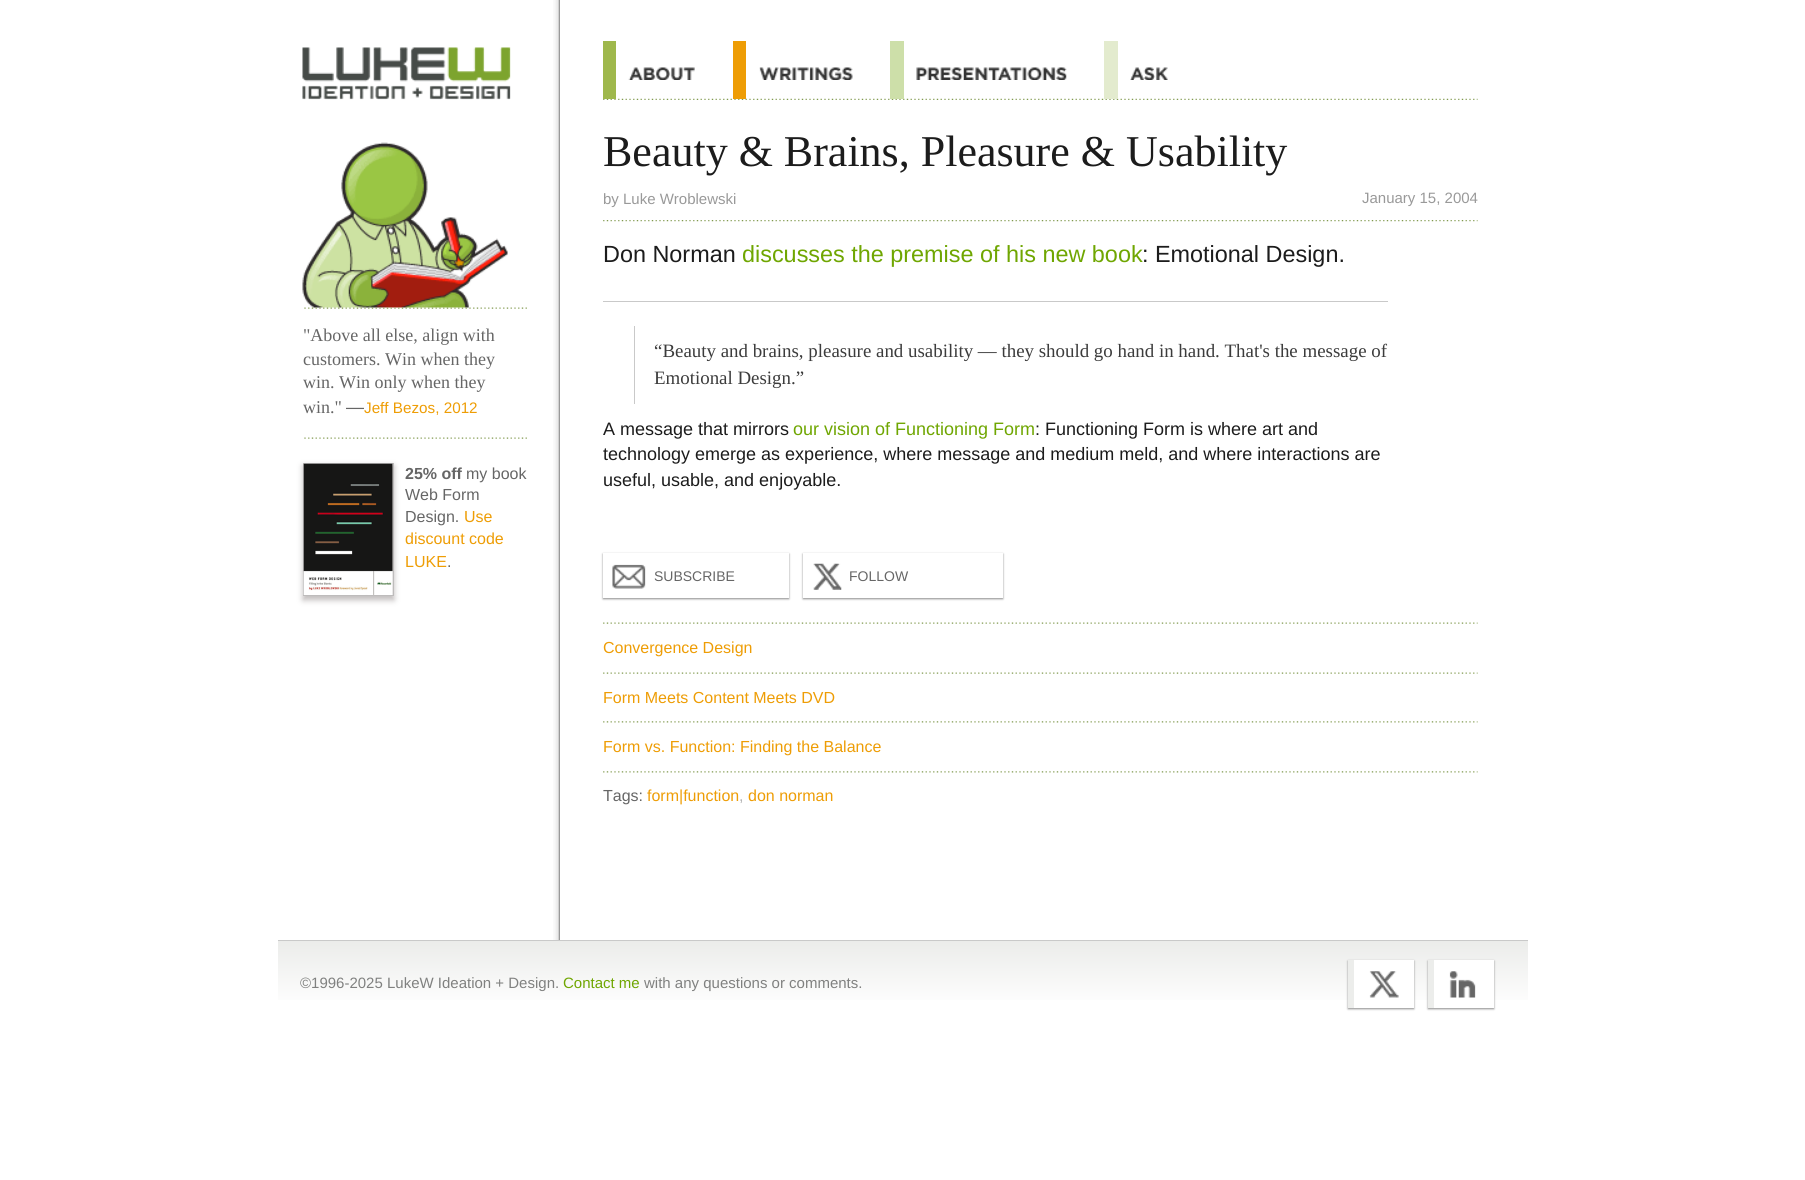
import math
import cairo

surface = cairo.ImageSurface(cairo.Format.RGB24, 1805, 1180)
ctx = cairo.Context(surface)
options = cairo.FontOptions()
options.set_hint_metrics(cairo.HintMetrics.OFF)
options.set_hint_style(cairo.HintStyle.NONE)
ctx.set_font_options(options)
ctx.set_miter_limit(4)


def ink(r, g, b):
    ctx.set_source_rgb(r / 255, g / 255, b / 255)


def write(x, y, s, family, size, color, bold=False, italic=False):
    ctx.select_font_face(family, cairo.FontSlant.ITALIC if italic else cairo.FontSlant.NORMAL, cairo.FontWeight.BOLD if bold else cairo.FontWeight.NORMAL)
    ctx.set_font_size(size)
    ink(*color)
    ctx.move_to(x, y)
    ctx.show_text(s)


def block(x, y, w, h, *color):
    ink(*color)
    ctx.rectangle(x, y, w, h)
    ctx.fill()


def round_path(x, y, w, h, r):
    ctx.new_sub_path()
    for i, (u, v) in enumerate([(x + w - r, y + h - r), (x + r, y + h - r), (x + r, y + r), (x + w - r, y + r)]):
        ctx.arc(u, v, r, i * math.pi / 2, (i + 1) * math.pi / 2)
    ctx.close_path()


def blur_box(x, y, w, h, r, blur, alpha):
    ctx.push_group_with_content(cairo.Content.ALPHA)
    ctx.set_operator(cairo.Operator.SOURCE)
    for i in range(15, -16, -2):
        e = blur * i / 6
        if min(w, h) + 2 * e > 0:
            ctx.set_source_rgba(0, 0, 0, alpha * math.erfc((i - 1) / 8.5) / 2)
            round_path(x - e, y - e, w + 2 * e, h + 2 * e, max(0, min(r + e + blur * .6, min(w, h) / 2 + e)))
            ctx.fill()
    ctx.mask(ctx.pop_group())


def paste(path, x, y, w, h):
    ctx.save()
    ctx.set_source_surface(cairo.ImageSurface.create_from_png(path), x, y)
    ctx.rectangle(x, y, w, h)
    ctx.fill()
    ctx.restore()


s1 = dict(family="Liberation Serif", size=18, color=(102, 102, 102))
s2 = dict(family="Liberation Sans", size=18, color=(102, 102, 102))
s3 = dict(family="Liberation Sans", size=15.25, color=(238, 157, 5))
s4 = dict(family="Liberation Sans", size=16, color=(102, 102, 102), bold=True)
s5 = dict(family="Liberation Sans", size=16, color=(102, 102, 102))
s6 = dict(family="Liberation Sans", size=16, color=(238, 157, 5))
s7 = dict(family="Liberation Serif", size=44, color=(28, 28, 28))
s8 = dict(family="Liberation Sans", size=15, color=(153, 153, 153))
s9 = dict(family="Liberation Sans", size=23.4, color=(28, 28, 28))
s10 = dict(family="Liberation Sans", size=23.4, color=(111, 166, 1))
s11 = dict(family="Liberation Serif", size=18.9, color=(60, 60, 60))
s12 = dict(family="Liberation Sans", size=18, color=(28, 28, 28))
s13 = dict(family="Liberation Sans", size=18, color=(111, 166, 1))
s14 = dict(family="Liberation Sans", size=14, color=(102, 102, 102))
s15 = dict(family="Liberation Sans", size=16, color=(181, 181, 181))
s16 = dict(family="Liberation Sans", size=15, color=(128, 129, 128))
s17 = dict(family="Liberation Sans", size=15, color=(111, 166, 1))

ink(255, 255, 255)
ctx.paint()
paste("pic1.png", 603, 98, 875, 2)
block(603, 41, 13, 58, 159, 184, 76)
paste("pic2.png", 628, 67, 67, 13)
block(733, 41, 13, 58, 238, 157, 5)
paste("pic3.png", 759, 67, 94, 13)
block(890, 41, 14, 58, 205, 223, 169)
paste("pic4.png", 916, 67, 151, 13)
block(1104, 41, 14, 58, 227, 235, 206)
paste("pic5.png", 1130, 67, 38, 13)
paste("pic6.png", 302, 47, 209, 53)
paste("pic7.png", 302, 142, 206, 166)
paste("pic8.png", 304, 307, 223, 2)
write(303, 341, "\"Above all else, align with", **s1)
write(303, 365, "customers. Win when they", **s1)
write(303, 388, "win. Win only when they", **s1)
write(303, 413, "win.\"", **s1)
write(346, 413, "—", **s2)
write(364, 413, "Jeff Bezos, 2012", **s3)
paste("pic9.png", 304, 437, 223, 2)
ink(191, 187, 187)
blur_box(303, 466, 91, 134, 0, 3, 1)
ctx.rectangle(303.5, 463.5, 90, 132)
ink(190, 188, 188)
ctx.set_line_width(1)
ctx.stroke()
paste("pic10.png", 303, 463, 90, 132)
write(405, 479, "25% off", **s4)
write(466, 479, "my book", **s5)
write(405, 500, "Web Form", **s5)
write(405, 522, "Design.", **s5)
write(464, 522, "Use", **s6)
write(405, 544, "discount code", **s6)
write(405, 567, "LUKE", **s6)
write(447, 567, ".", **s5)
paste("pic11.png", 553, 0, 7, 940)
write(603, 166, "Beauty & Brains, Pleasure & Usability", **s7)
paste("pic12.png", 603, 220, 875, 2)
write(603, 204, "by Luke Wroblewski", **s8)
write(1362, 203, "January 15, 2004", **s8)
block(603, 301, 785, 1, 201, 201, 201)
write(603, 262, "Don Norman", **s9)
write(742, 262, "discusses the premise of his new book", **s10)
write(1142, 262, ": Emotional Design.", **s9)
block(634, 326, 1, 78, 201, 201, 201)
write(654, 357, "“Beauty and brains, pleasure and usability — they should go hand in hand. That's the message of", **s11)
write(654, 384, "Emotional Design.”", **s11)
write(603, 435, "A message that mirrors", **s12)
write(793, 435, "our vision of Functioning Form", **s13)
write(1035, 435, ": Functioning Form is where art and", **s12)
write(603, 460, "technology emerge as experience, where message and medium meld, and where interactions are", **s12)
write(603, 486, "useful, usable, and enjoyable.", **s12)
ink(141, 141, 141)
blur_box(603, 554, 186, 45, 0, 1, 1)
block(603, 553, 186, 45, 255, 255, 255)
paste("pic13.png", 612, 564, 34, 25)
write(654, 581, "SUBSCRIBE", **s14)
ink(141, 141, 141)
blur_box(803, 554, 200, 45, 0, 1, 1)
block(803, 553, 200, 45, 255, 255, 255)
paste("pic14.png", 813, 563, 29, 27)
write(849, 581, "FOLLOW", **s14)
paste("pic15.png", 603, 622, 875, 2)
write(603, 653, "Convergence Design", **s6)
paste("pic15.png", 603, 672, 875, 2)
write(603, 703, "Form Meets Content Meets DVD", **s6)
paste("pic16.png", 603, 721, 875, 2)
write(603, 752, "Form vs. Function: Finding the Balance", **s6)
paste("pic16.png", 603, 771, 875, 2)
write(603, 801, "Tags:", **s5)
write(647, 801, "form|function", **s6)
write(739, 801, ",", **s15)
write(748, 801, "don norman", **s6)
gradient = cairo.LinearGradient(903, 941, 903, 1025)
gradient.add_color_stop_rgba(0, 0.922, 0.925, 0.918, 1)
gradient.add_color_stop_rgba(0.8, 1, 1, 1, 1)
ctx.set_source(gradient)
ctx.rectangle(278, 941, 1250, 59)
ctx.fill()
block(278, 940, 1250, 1, 201, 201, 201)
write(300, 988, "©1996-2025 LukeW Ideation + Design.", **s16)
write(563, 988, "Contact me", **s17)
write(644, 988, "with any questions or comments.", **s16)
ink(141, 141, 141)
blur_box(1348, 961, 66, 48, 0, 1, 1)
block(1354, 960, 60, 48, 255, 255, 255)
block(1348, 960, 6, 48, 236, 237, 235)
paste("pic17.png", 1369, 971, 30, 27)
ink(141, 141, 141)
blur_box(1428, 961, 66, 48, 0, 1, 1)
block(1434, 960, 60, 48, 255, 255, 255)
block(1428, 960, 6, 48, 236, 237, 235)
paste("pic18.png", 1449, 971, 27, 27)
surface.write_to_png("screenshot.png")
